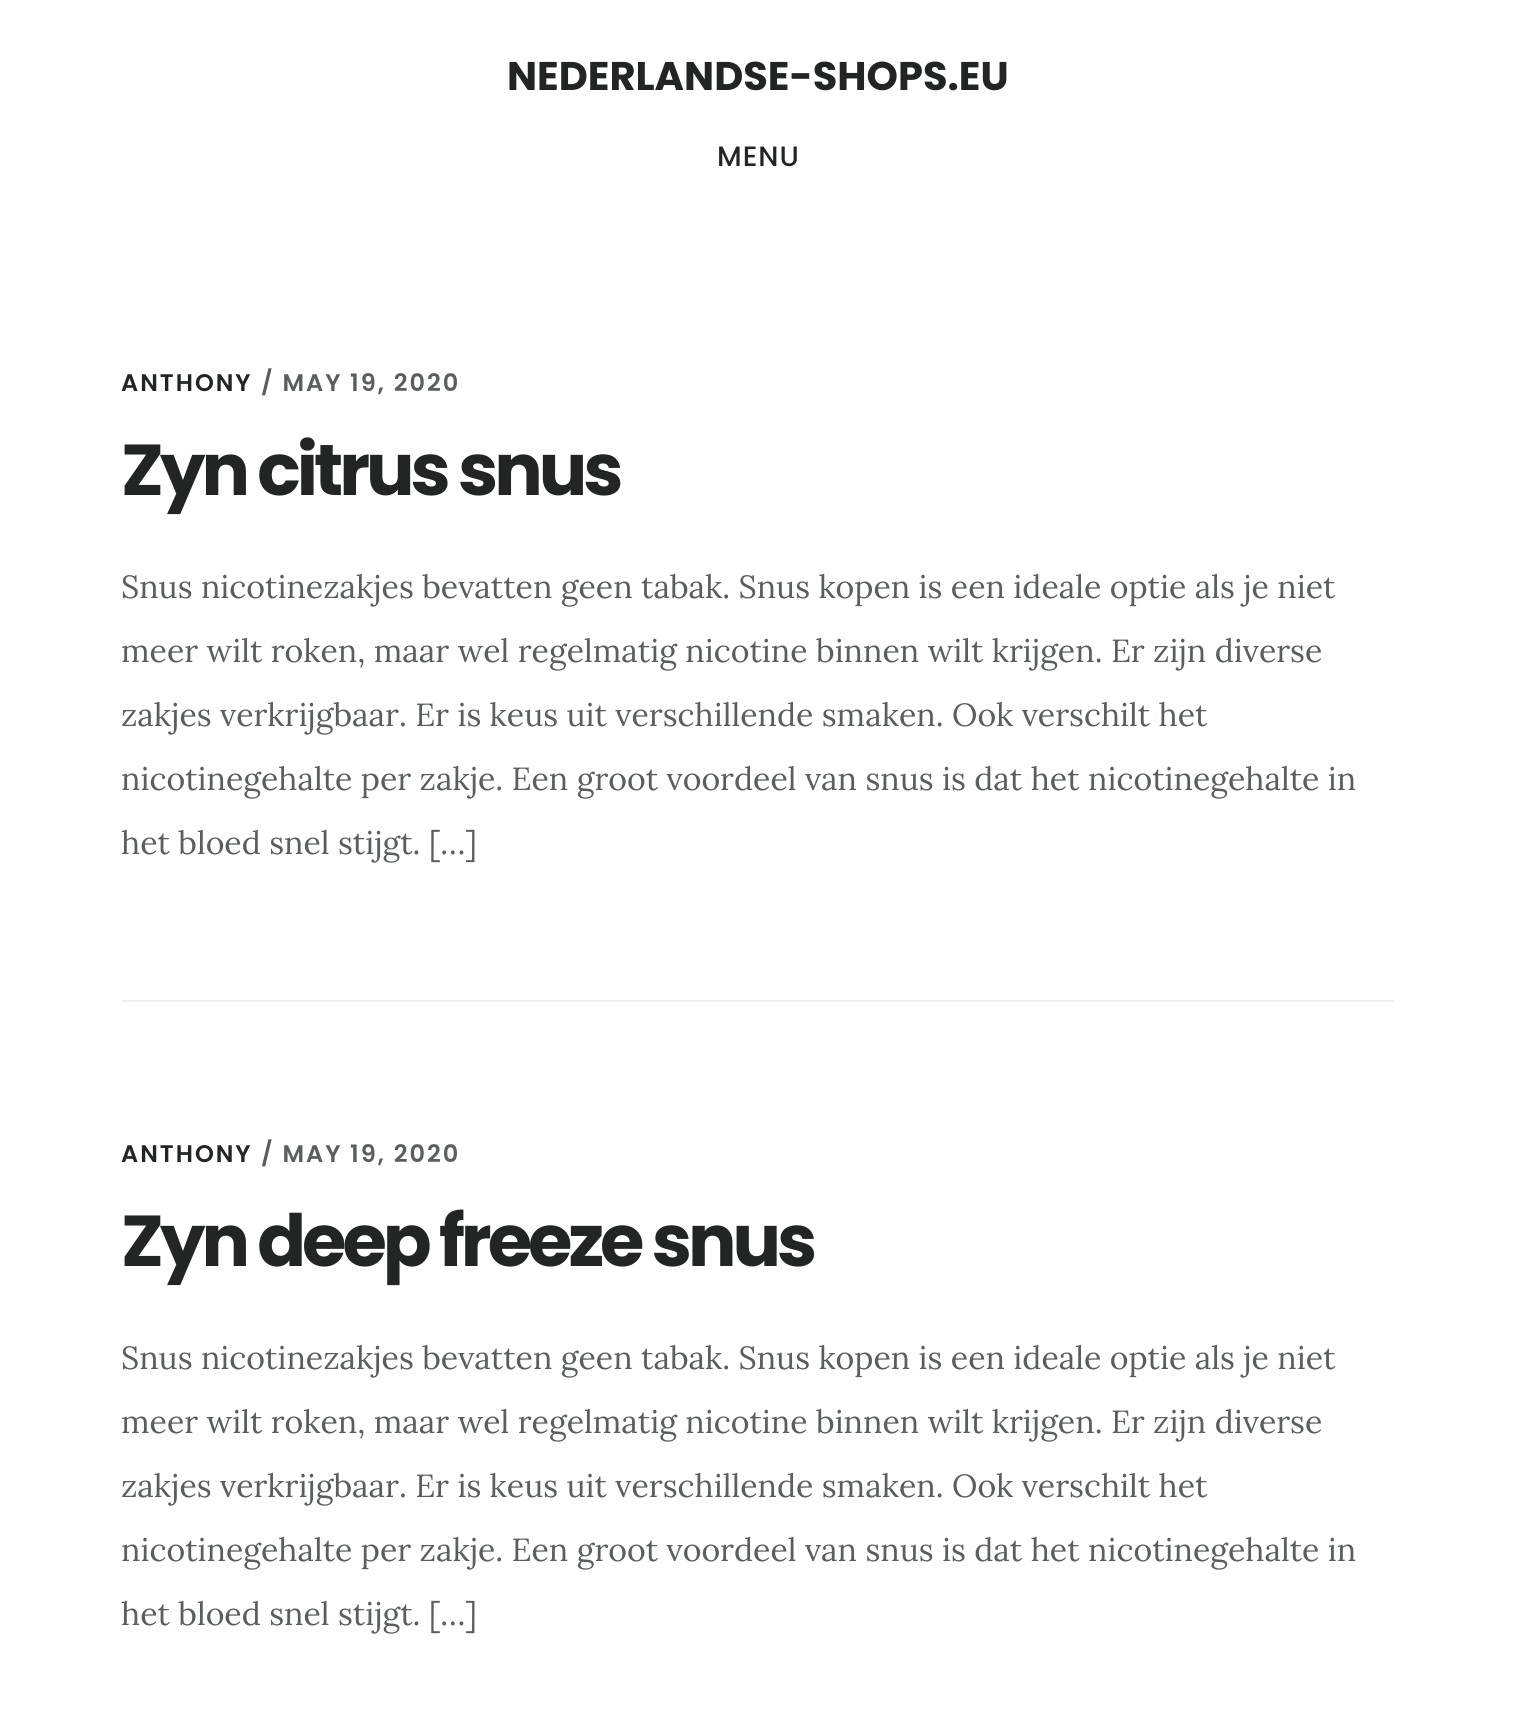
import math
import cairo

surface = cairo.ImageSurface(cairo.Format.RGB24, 1515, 1726)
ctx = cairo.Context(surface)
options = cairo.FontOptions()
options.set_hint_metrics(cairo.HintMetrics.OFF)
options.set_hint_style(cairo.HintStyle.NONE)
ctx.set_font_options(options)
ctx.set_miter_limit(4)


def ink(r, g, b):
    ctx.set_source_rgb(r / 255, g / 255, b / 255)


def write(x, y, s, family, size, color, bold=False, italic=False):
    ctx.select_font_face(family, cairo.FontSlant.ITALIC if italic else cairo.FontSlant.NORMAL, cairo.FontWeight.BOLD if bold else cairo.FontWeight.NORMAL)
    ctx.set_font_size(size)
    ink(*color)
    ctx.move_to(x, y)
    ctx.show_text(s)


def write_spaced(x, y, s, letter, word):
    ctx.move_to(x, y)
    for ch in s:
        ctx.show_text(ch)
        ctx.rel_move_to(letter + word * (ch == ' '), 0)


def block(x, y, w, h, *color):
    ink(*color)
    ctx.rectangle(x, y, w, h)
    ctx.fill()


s1 = dict(family="Poppins", size=40, color=(35, 37, 37), bold=True)
s2 = dict(family="Lora", size=32, color=(91, 94, 94))

ink(255, 255, 255)
ctx.paint()
write(507, 90, "NEDERLANDSE-SHOPS.EU", **s1)
ctx.select_font_face("Poppins Medium")
ctx.set_font_size(28)
write_spaced(717, 166, "MENU", 1, 0)
block(122, 1000, 1272, 2, 238, 238, 238)
ctx.select_font_face("Poppins SemiBold")
ctx.set_font_size(24)
ink(35, 37, 37)
write_spaced(121, 391, "ANTHONY", 2, 0)
ink(91, 94, 94)
write_spaced(261, 391, "/ MAY 19, 2020", 2, 0)
ctx.select_font_face("Poppins", cairo.FontSlant.NORMAL, cairo.FontWeight.BOLD)
ctx.set_font_size(72)
ink(35, 37, 37)
write_spaced(121, 495, "Zyn citrus snus", -4, 0)
write(121, 598, "Snus nicotinezakjes bevatten geen tabak. Snus kopen is een ideale optie als je niet", **s2)
write(121, 662, "meer wilt roken, maar wel regelmatig nicotine binnen wilt krijgen. Er zijn diverse", **s2)
write(121, 726, "zakjes verkrijgbaar. Er is keus uit verschillende smaken. Ook verschilt het", **s2)
write(121, 790, "nicotinegehalte per zakje. Een groot voordeel van snus is dat het nicotinegehalte in", **s2)
write(121, 854, "het bloed snel stijgt. […]", **s2)
ctx.select_font_face("Poppins SemiBold")
ctx.set_font_size(24)
ink(35, 37, 37)
write_spaced(121, 1162, "ANTHONY", 2, 0)
ink(91, 94, 94)
write_spaced(261, 1162, "/ MAY 19, 2020", 2, 0)
ctx.select_font_face("Poppins", cairo.FontSlant.NORMAL, cairo.FontWeight.BOLD)
ctx.set_font_size(72)
ink(35, 37, 37)
write_spaced(121, 1266, "Zyn deep freeze snus", -4, 0)
write(121, 1369, "Snus nicotinezakjes bevatten geen tabak. Snus kopen is een ideale optie als je niet", **s2)
write(121, 1433, "meer wilt roken, maar wel regelmatig nicotine binnen wilt krijgen. Er zijn diverse", **s2)
write(121, 1497, "zakjes verkrijgbaar. Er is keus uit verschillende smaken. Ook verschilt het", **s2)
write(121, 1561, "nicotinegehalte per zakje. Een groot voordeel van snus is dat het nicotinegehalte in", **s2)
write(121, 1625, "het bloed snel stijgt. […]", **s2)
surface.write_to_png("screenshot.png")
